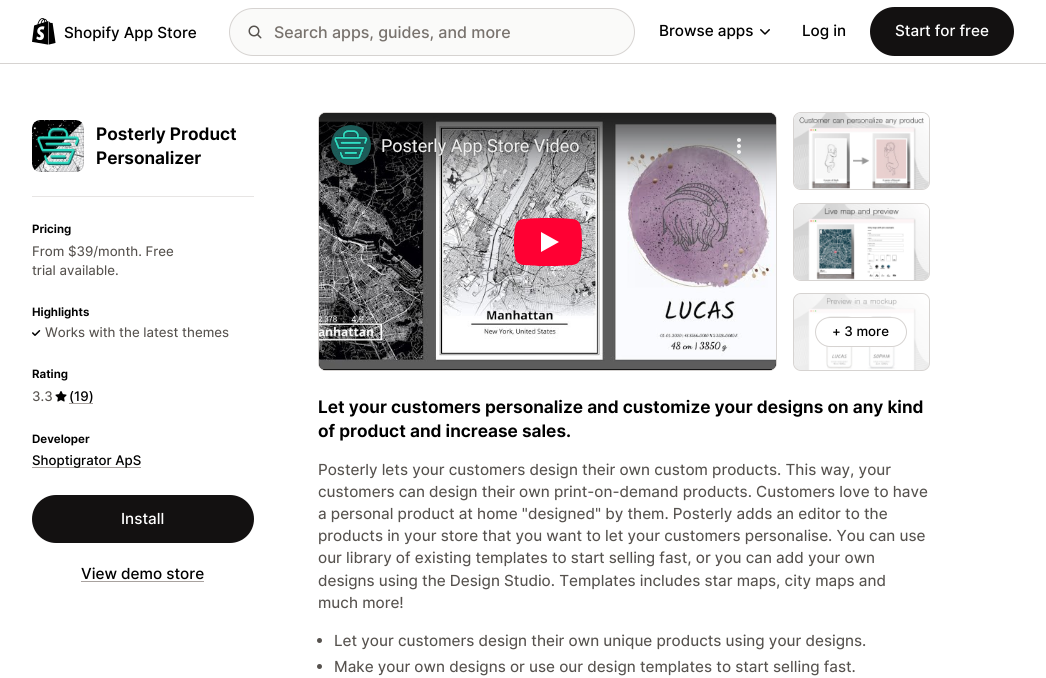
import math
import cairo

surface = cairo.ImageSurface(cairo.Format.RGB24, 1046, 678)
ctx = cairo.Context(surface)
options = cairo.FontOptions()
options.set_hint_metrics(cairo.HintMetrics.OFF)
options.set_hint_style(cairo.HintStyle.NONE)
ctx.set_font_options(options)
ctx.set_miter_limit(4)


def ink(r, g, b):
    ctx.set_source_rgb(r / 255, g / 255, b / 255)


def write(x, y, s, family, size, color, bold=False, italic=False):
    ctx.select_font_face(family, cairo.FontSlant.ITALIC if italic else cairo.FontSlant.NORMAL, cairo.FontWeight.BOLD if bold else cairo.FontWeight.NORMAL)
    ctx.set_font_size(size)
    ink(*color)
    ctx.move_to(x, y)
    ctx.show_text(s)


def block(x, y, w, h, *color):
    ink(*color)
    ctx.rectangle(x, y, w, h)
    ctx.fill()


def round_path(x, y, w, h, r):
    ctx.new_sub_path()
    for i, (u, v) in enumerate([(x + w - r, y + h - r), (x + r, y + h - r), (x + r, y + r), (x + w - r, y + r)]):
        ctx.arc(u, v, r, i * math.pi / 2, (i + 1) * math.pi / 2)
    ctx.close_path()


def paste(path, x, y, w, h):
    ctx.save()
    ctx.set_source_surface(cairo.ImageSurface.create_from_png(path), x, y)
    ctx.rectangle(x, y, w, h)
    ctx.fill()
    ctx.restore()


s1 = dict(family="Inter Medium", size=15.25, color=(0, 0, 0))
s2 = dict(family="Inter Medium", size=16, color=(120, 114, 109))
s3 = dict(family="Inter Medium", size=15.25, color=(255, 255, 255))
s4 = dict(family="Inter SemiBold", size=17.25, color=(0, 0, 0))
s5 = dict(family="Inter SemiBold", size=11.5, color=(0, 0, 0))
s6 = dict(family="Inter", size=13.25, color=(86, 82, 78))
s7 = dict(family="Inter Medium", size=13.25, color=(0, 0, 0))
s8 = dict(family="Inter", size=15.25, color=(86, 82, 78))

ink(255, 255, 255)
ctx.paint()
block(0, 63, 1046, 1, 214, 211, 209)
paste("pic1.png", 32, 18, 24, 27)
write(64, 38, "Shopify App Store", **s1)
ink(250, 250, 249)
round_path(229.5, 8.5, 405, 47, 23.5)
ctx.fill_preserve()
ink(214, 211, 209)
ctx.set_line_width(1)
ctx.stroke()
paste("pic2.png", 248, 25, 14, 14)
write(274, 38, "Search apps, guides, and more", **s2)
write(659, 36, "Browse apps", **s1)
paste("pic3.png", 760, 29, 10, 6)
write(802, 36, "Log in", **s1)
ink(19, 17, 17)
round_path(870, 7, 144, 49, 24.5)
ctx.fill()
write(895, 36, "Start for free", **s3)
paste("pic4.png", 32, 120, 52, 52)
round_path(32.5, 120.5, 51, 51, 7.5)
ctx.set_source_rgba(0, 0, 0, 0.1)
ctx.stroke()
write(96, 140, "Posterly Product", **s4)
write(96, 164, "Personalizer", **s4)
block(32, 196, 222, 1, 231, 229, 228)
write(32, 233, "Pricing", **s5)
write(32, 256, "From $39/month. Free", **s6)
write(32, 275, "trial available.", **s6)
write(32, 316, "Highlights", **s5)
paste("pic5.png", 32, 330, 9, 6)
write(45, 337, "Works with the latest themes", **s6)
write(32, 378, "Rating", **s5)
write(32, 401, "3.3", **s6)
paste("pic6.png", 55, 391, 12, 11)
write(69, 401, "(19)", **s7)
block(69, 403, 24, 1, 168, 162, 159)
write(32, 443, "Developer", **s5)
block(32, 467, 109, 1, 168, 162, 159)
write(32, 465, "Shoptigrator ApS", **s7)
ink(19, 17, 17)
round_path(32, 495, 222, 48, 24)
ctx.fill()
write(121, 524, "Install", **s3)
write(81, 579, "View demo store", **s1)
block(81, 581, 123, 1, 168, 162, 159)
round_path(318.5, 112.5, 458, 258, 7.5)
ink(214, 211, 209)
ctx.stroke()
paste("pic7.png", 319, 113, 457, 257)
round_path(793.5, 112.5, 136, 77, 7.5)
ctx.stroke()
paste("pic8.png", 794, 113, 135, 76)
round_path(793.5, 203.5, 136, 77, 7.5)
ctx.stroke()
paste("pic9.png", 794, 204, 135, 76)
round_path(793.5, 293.5, 136, 77, 7.5)
ctx.stroke()
paste("pic10.png", 794, 294, 135, 76)
ink(255, 255, 255)
round_path(815.5, 317.5, 91, 29, 14.5)
ctx.fill_preserve()
ink(214, 211, 209)
ctx.stroke()
write(832, 336, "+ 3 more", **s7)
write(318, 413, "Let your customers personalize and customize your designs on any kind", **s4)
write(318, 437, "of product and increase sales.", **s4)
write(318, 475, "Posterly lets your customers design their own custom products. This way, your", **s8)
write(318, 497, "customers can design their own print-on-demand products. Customers love to have", **s8)
write(318, 519, "a personal product at home \"designed\" by them. Posterly adds an editor to the", **s8)
write(318, 541, "products in your store that you want to let your customers personalise. You can use", **s8)
write(318, 563, "our library of existing templates to start selling fast, or you can add your own", **s8)
write(318, 586, "designs using the Design Studio. Templates includes star maps, city maps and", **s8)
write(318, 608, "much more!", **s8)
ctx.new_path()
ctx.arc(319.5, 640.5, 2.5, 0, 2 * math.pi)
ctx.fill()
write(334, 646, "Let your customers design their own unique products using your designs.", **s8)
ctx.new_path()
ctx.arc(319.5, 666.5, 2.5, 0, 2 * math.pi)
ctx.fill()
write(334, 672, "Make your own designs or use our design templates to start selling fast.", **s8)
surface.write_to_png("screenshot.png")
